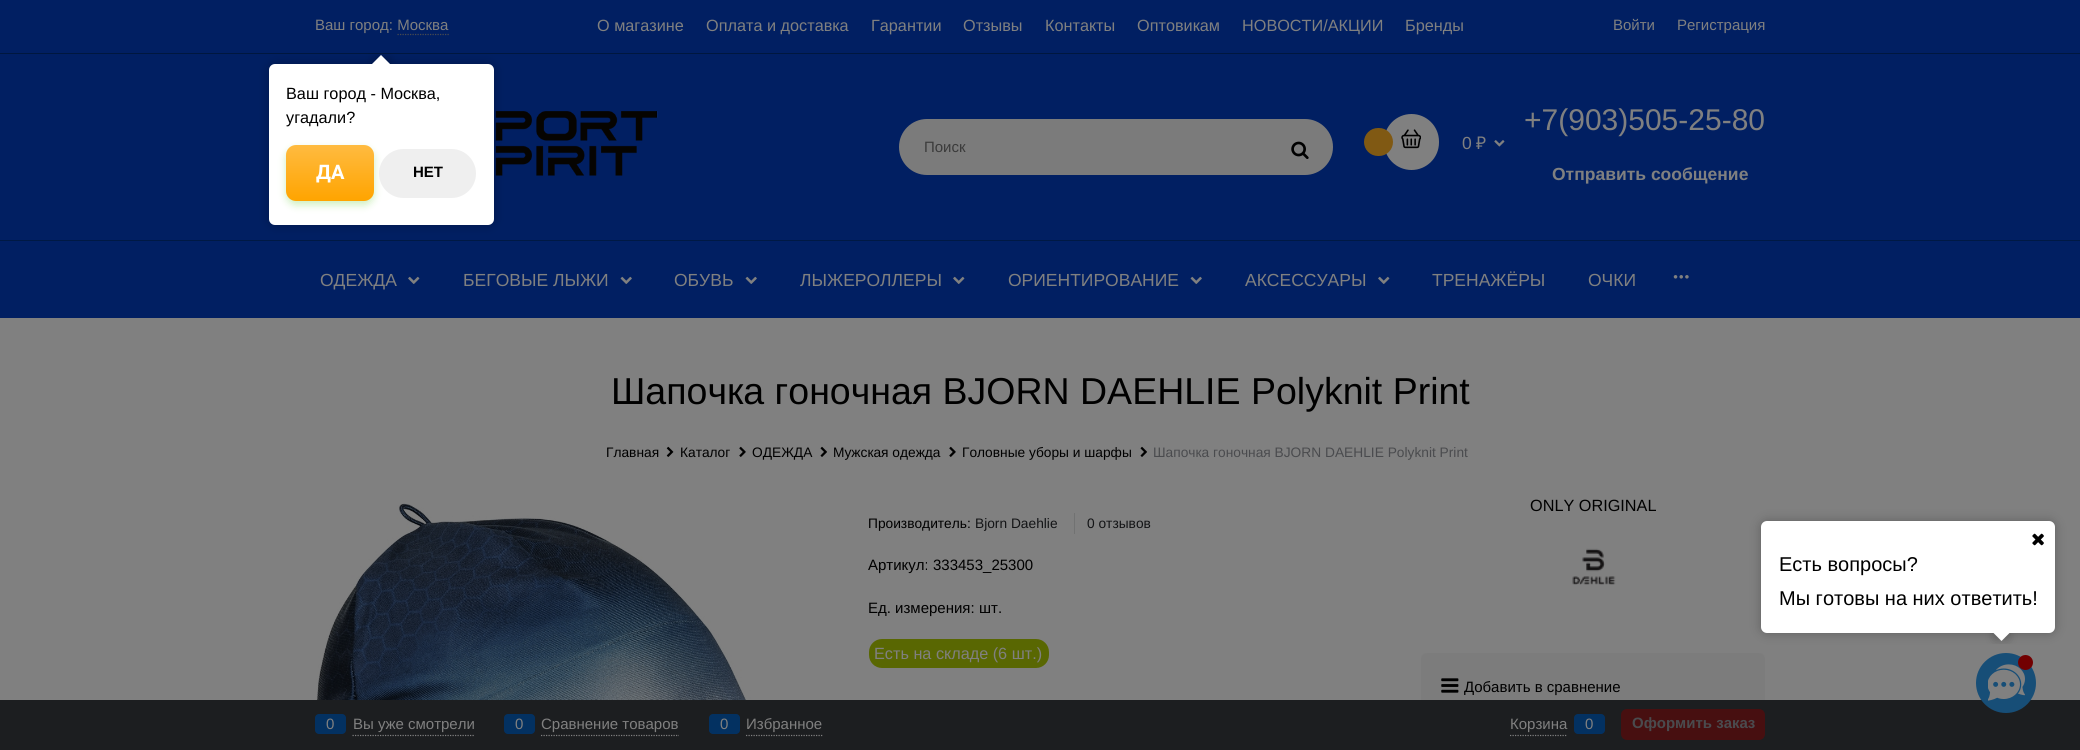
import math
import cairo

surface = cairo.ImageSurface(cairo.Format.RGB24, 2080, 750)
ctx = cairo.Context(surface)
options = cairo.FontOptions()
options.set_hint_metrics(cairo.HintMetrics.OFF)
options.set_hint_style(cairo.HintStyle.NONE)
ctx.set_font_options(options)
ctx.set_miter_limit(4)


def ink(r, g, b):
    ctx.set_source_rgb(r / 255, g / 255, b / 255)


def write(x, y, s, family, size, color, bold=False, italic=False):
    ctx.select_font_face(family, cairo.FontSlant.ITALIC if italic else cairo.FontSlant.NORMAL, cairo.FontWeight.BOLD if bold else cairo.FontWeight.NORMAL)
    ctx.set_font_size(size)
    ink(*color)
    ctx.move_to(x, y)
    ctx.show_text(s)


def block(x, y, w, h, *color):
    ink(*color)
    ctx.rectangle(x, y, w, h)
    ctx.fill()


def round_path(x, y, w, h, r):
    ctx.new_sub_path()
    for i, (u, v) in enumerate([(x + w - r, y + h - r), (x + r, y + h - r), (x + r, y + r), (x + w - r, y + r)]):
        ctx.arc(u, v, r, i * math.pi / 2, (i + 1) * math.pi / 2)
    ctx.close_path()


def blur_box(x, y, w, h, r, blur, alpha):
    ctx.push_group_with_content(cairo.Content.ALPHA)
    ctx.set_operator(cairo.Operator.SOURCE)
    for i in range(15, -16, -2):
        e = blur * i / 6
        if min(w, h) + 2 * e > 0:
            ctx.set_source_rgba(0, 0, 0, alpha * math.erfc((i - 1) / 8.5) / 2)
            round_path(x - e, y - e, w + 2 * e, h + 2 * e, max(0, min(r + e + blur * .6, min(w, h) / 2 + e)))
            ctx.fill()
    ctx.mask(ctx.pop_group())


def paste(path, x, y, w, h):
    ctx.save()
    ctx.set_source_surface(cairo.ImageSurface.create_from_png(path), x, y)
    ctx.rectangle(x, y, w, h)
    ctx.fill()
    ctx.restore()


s1 = dict(family="Liberation Sans", size=15, color=(128, 128, 128))
s2 = dict(family="Liberation Sans", size=16.25, color=(128, 128, 128))
s3 = dict(family="Liberation Sans", size=15, color=(59, 59, 59))
s4 = dict(family="Liberation Sans", size=17.5, color=(128, 128, 128))
s5 = dict(family="Noto Sans", size=17.5, color=(128, 128, 128))
s6 = dict(family="Liberation Sans", size=30, color=(128, 128, 128))
s7 = dict(family="Liberation Sans", size=17.5, color=(128, 128, 128), bold=True)
s8 = dict(family="Liberation Sans", size=37.5, color=(0, 0, 0))
s9 = dict(family="Liberation Sans", size=13.75, color=(0, 0, 0))
s10 = dict(family="Liberation Sans", size=13.75, color=(74, 75, 78))
s11 = dict(family="Liberation Sans", size=13.75, color=(19, 20, 22))
s12 = dict(family="Liberation Sans", size=15, color=(0, 0, 0))
s13 = dict(family="Liberation Sans", size=16.25, color=(0, 0, 0))
s14 = dict(family="Liberation Sans", size=15, color=(74, 75, 78), bold=True)
s15 = dict(family="Roboto", size=20, color=(255, 255, 255), bold=True)
s16 = dict(family="Liberation Sans", size=15, color=(0, 0, 0), bold=True)
s17 = dict(family="Liberation Sans", size=20, color=(0, 0, 0))

ink(128, 128, 128)
ctx.paint()
block(0, 0, 2080, 240, 1, 31, 98)
block(0, 240, 2080, 1, 0, 25, 68)
block(0, 53, 2080, 1, 0, 23, 63)
write(315, 30, "Ваш город: Москва", **s1)
ctx.new_path()
ctx.move_to(397.5, 34.5)
ctx.line_to(449, 34.5)
ink(74, 75, 78)
ctx.set_line_width(1.2)
ctx.set_dash([1.25, 1.25])
ctx.stroke()
write(597, 31, "О магазине", **s2)
write(706, 31, "Оплата и доставка", **s2)
write(871, 31, "Гарантии", **s2)
write(963, 31, "Отзывы", **s2)
write(1045, 31, "Контакты", **s2)
write(1137, 31, "Оптовикам", **s2)
write(1242, 31, "НОВОСТИ/АКЦИИ", **s2)
write(1405, 31, "Бренды", **s2)
write(1613, 30, "Войти", **s1)
write(1677, 30, "Регистрация", **s1)
paste("pic1.png", 495, 111, 163, 65)
ink(123, 123, 123)
round_path(899, 119, 434, 56, 28)
ctx.fill()
write(924, 152, "Поиск", **s3)
paste("pic2.png", 1291, 141, 18, 18)
ink(128, 128, 128)
round_path(1384, 114, 55, 56, 27.5)
ctx.fill()
ink(128, 89, 19)
round_path(1364, 128, 29, 28, 14)
ctx.fill()
paste("pic3.png", 1401, 129, 20, 20)
write(1462, 149, "0", **s4)
write(1476, 149, "₽", **s5)
paste("pic4.png", 1494, 140, 11, 7)
write(1524, 130, "+7(903)505-25-80", **s6)
write(1552, 180, "Отправить сообщение", **s7)
block(0, 241, 2080, 77, 1, 31, 98)
write(320, 286, "ОДЕЖДА", **s4)
paste("pic5.png", 408, 276, 12, 8)
write(463, 286, "БЕГОВЫЕ ЛЫЖИ", **s4)
paste("pic6.png", 620, 276, 12, 8)
write(674, 286, "ОБУВЬ", **s4)
paste("pic6.png", 745, 276, 12, 8)
write(800, 286, "ЛЫЖЕРОЛЛЕРЫ", **s4)
paste("pic5.png", 953, 276, 12, 8)
write(1008, 286, "ОРИЕНТИРОВАНИЕ", **s4)
paste("pic6.png", 1190, 276, 12, 8)
write(1245, 286, "АКСЕССУАРЫ", **s4)
paste("pic5.png", 1378, 276, 12, 8)
write(1432, 286, "ТРЕНАЖЁРЫ", **s4)
write(1588, 286, "ОЧКИ", **s4)
paste("pic7.png", 1673, 275, 16, 4)
write(611, 404, "Шапочка гоночная BJORN DAEHLIE Polyknit Print", **s8)
write(606, 457, "Главная", **s9)
paste("pic8.png", 666, 446, 8, 11)
write(680, 457, "Каталог", **s9)
paste("pic9.png", 739, 446, 7, 11)
write(752, 457, "ОДЕЖДА", **s9)
paste("pic10.png", 820, 446, 7, 11)
write(833, 457, "Мужская одежда", **s9)
paste("pic9.png", 949, 446, 7, 11)
write(962, 457, "Головные уборы и шарфы", **s9)
paste("pic10.png", 1140, 446, 7, 11)
write(1153, 457, "Шапочка гоночная BJORN DAEHLIE Polyknit Print", **s10)
paste("pic11.png", 316, 503, 448, 197)
write(868, 528, "Производитель:", **s9)
write(975, 528, "Bjorn Daehlie", **s11)
block(1074, 513, 1, 21, 113, 114, 114)
write(1087, 528, "0 отзывов", **s11)
write(868, 570, "Артикул:", **s12)
write(933, 570, "333453_25300", **s12)
write(868, 613, "Ед. измерения:", **s12)
write(979, 613, "шт.", **s12)
ink(89, 103, 2)
round_path(869, 639, 180, 29, 13)
ctx.fill()
write(874, 659, "Есть на складе (6 шт.)", **s2)
write(1530, 511, "ONLY ORIGINAL", **s13)
paste("pic12.png", 1572, 548, 44, 37)
ink(124, 124, 124)
round_path(1421, 653, 344, 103, 6)
ctx.fill()
paste("pic13.png", 1441, 678, 18, 15)
write(1464, 692, "Добавить в сравнение", **s12)
block(0, 700, 2080, 50, 28, 30, 32)
ctx.new_path()
ctx.move_to(352.5, 735.5)
ctx.line_to(474, 735.5)
ink(128, 128, 128)
ctx.stroke()
ink(3, 49, 97)
round_path(315, 714, 31, 20, 4)
ctx.fill()
write(326, 729, "0", **s1)
write(353, 729, "Вы уже смотрели", **s1)
ctx.new_path()
ctx.move_to(541, 735.5)
ctx.line_to(679, 735.5)
ctx.stroke()
ink(3, 49, 97)
round_path(504, 714, 31, 20, 4)
ctx.fill()
write(515, 729, "0", **s1)
write(541, 729, "Сравнение товаров", **s1)
ctx.new_path()
ctx.move_to(746, 735.5)
ctx.line_to(822.5, 735.5)
ctx.stroke()
ink(3, 49, 97)
round_path(709, 714, 31, 20, 4)
ctx.fill()
write(720, 729, "0", **s1)
write(746, 729, "Избранное", **s1)
ctx.new_path()
ctx.move_to(1510, 735.5)
ctx.line_to(1567.5, 735.5)
ctx.stroke()
write(1510, 729, "Корзина", **s1)
ink(3, 49, 97)
round_path(1574, 714, 31, 20, 4)
ctx.fill()
write(1585, 729, "0", **s1)
ink(71, 15, 16)
round_path(1621, 709, 144, 31, 6)
ctx.fill()
write(1632, 728, "Оформить заказ", **s14)
ink(0, 0, 0)
blur_box(269, 64, 225, 161, 6, 5.5, 0.25)
ink(255, 255, 255)
round_path(269, 64, 225, 161, 6)
ctx.fill()
ctx.save()
ctx.rectangle(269, 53, 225, 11)
ctx.clip()
ink(0, 0, 0)
blur_box(375, 58, 13, 12, 0, 5.5, 0.25)
ctx.restore()
ctx.save()
ctx.rectangle(269, 53, 225, 11)
ctx.clip()
ctx.new_path()
ctx.move_to(381, 55)
ctx.line_to(390, 64)
ctx.line_to(381, 72.5)
ctx.line_to(372, 64)
ctx.close_path()
ctx.fill()
ctx.restore()
write(286, 99, "Ваш город - Москва,", **s13)
write(286, 123, "угадали?", **s13)
ink(95, 204, 41)
blur_box(286, 149, 88, 56, 10, 4, 0.3)
gradient = cairo.LinearGradient(330, 145, 330, 201)
gradient.add_color_stop_rgba(0, 1, 0.733, 0.251, 1)
gradient.add_color_stop_rgba(1, 1, 0.643, 0, 1)
ctx.set_source(gradient)
round_path(286, 145, 88, 56, 10)
ctx.fill()
write(316, 179, "ДА", **s15)
ink(239, 239, 239)
round_path(379, 149, 97, 49, 24.5)
ctx.fill()
write(413, 177, "НЕТ", **s16)
ink(0, 0, 0)
blur_box(1761, 521, 294, 112, 6, 5.5, 0.25)
ink(255, 255, 255)
round_path(1761, 521, 294, 112, 6)
ctx.fill()
paste("pic14.png", 2032, 533, 12, 13)
write(1779, 571, "Есть вопросы?", **s17)
write(1779, 605, "Мы готовы на них ответить!", **s17)
ink(23, 78, 119)
ctx.new_path()
ctx.arc(2006, 683, 30, 0, 2 * math.pi)
ctx.fill()
paste("pic15.png", 1988, 664, 37, 37)
ink(114, 0, 1)
ctx.arc(2025.5, 662.5, 7.5, 0, 2 * math.pi)
ctx.fill()
ctx.save()
ctx.rectangle(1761, 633, 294, 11)
ctx.clip()
ink(0, 0, 0)
blur_box(1995, 626, 13, 13, 0, 5.5, 0.25)
ctx.restore()
ctx.save()
ctx.rectangle(1761, 633, 294, 11)
ctx.clip()
ink(255, 255, 255)
ctx.new_path()
ctx.move_to(2001.5, 623.5)
ctx.line_to(2010.5, 632)
ctx.line_to(2001.5, 641)
ctx.line_to(1992.5, 632)
ctx.close_path()
ctx.fill()
ctx.restore()
surface.write_to_png("screenshot.png")
